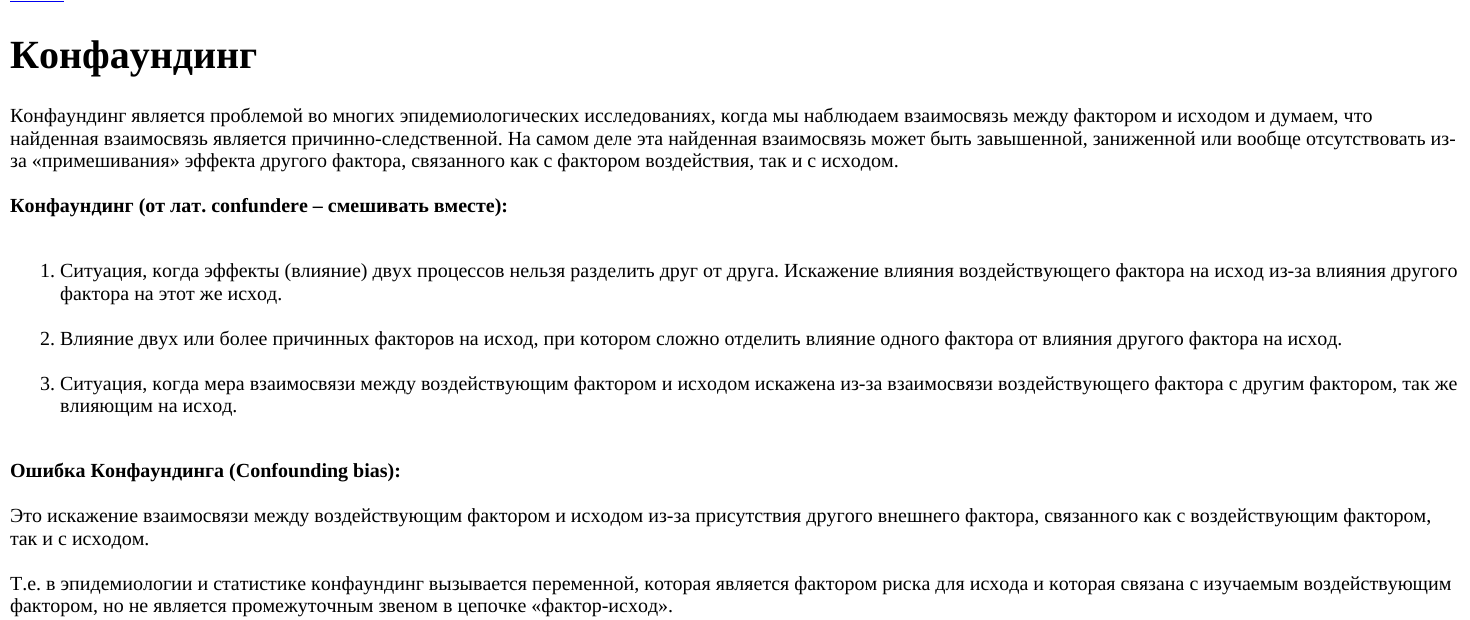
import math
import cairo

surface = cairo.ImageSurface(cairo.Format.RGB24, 1470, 620)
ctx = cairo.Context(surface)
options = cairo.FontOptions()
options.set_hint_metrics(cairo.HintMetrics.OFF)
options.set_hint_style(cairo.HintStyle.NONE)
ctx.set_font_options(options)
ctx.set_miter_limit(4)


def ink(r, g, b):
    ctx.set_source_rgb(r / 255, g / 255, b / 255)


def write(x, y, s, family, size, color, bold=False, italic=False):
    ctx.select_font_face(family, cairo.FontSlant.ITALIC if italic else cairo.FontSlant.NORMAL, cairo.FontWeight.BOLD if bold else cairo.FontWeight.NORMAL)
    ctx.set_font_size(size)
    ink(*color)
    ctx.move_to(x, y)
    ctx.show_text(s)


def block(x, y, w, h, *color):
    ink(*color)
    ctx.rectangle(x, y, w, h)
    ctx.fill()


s1 = dict(family="Liberation Serif", size=40, color=(0, 0, 0), bold=True)
s2 = dict(family="Liberation Serif", size=20, color=(0, 0, 0))
s3 = dict(family="Liberation Serif", size=20, color=(0, 0, 0), bold=True)

ink(255, 255, 255)
ctx.paint()
block(10, 1, 54, 1, 0, 0, 238)
write(10, 68, "Конфаундинг", **s1)
write(10, 122, "Конфаундинг является проблемой во многих эпидемиологических исследованиях, когда мы наблюдаем взаимосвязь между фактором и исходом и думаем, что", **s2)
write(10, 145, "найденная взаимосвязь является причинно-следственной. На самом деле эта найденная взаимосвязь может быть завышенной, заниженной или вообще отсутствовать из-", **s2)
write(10, 167, "за «примешивания» эффекта другого фактора, связанного как с фактором воздействия, так и с исходом.", **s2)
write(10, 212, "Конфаундинг (от лат. confundere – смешивать вместе):", **s3)
write(40, 277, "1. Ситуация, когда эффекты (влияние) двух процессов нельзя разделить друг от друга. Искажение влияния воздействующего фактора на исход из-за влияния другого", **s2)
write(60, 300, "фактора на этот же исход.", **s2)
write(40, 345, "2. Влияние двух или более причинных факторов на исход, при котором сложно отделить влияние одного фактора от влияния другого фактора на исход.", **s2)
write(40, 390, "3. Ситуация, когда мера взаимосвязи между воздействующим фактором и исходом искажена из-за взаимосвязи воздействующего фактора с другим фактором, так же", **s2)
write(60, 412, "влияющим на исход.", **s2)
write(10, 477, "Ошибка Конфаундинга (Confounding bias):", **s3)
write(10, 522, "Это искажение взаимосвязи между воздействующим фактором и исходом из-за присутствия другого внешнего фактора, связанного как с воздействующим фактором,", **s2)
write(10, 545, "так и с исходом.", **s2)
write(10, 590, "Т.е. в эпидемиологии и статистике конфаундинг вызывается переменной, которая является фактором риска для исхода и которая связана с изучаемым воздействующим", **s2)
write(10, 612, "фактором, но не является промежуточным звеном в цепочке «фактор-исход».", **s2)
surface.write_to_png("screenshot.png")
